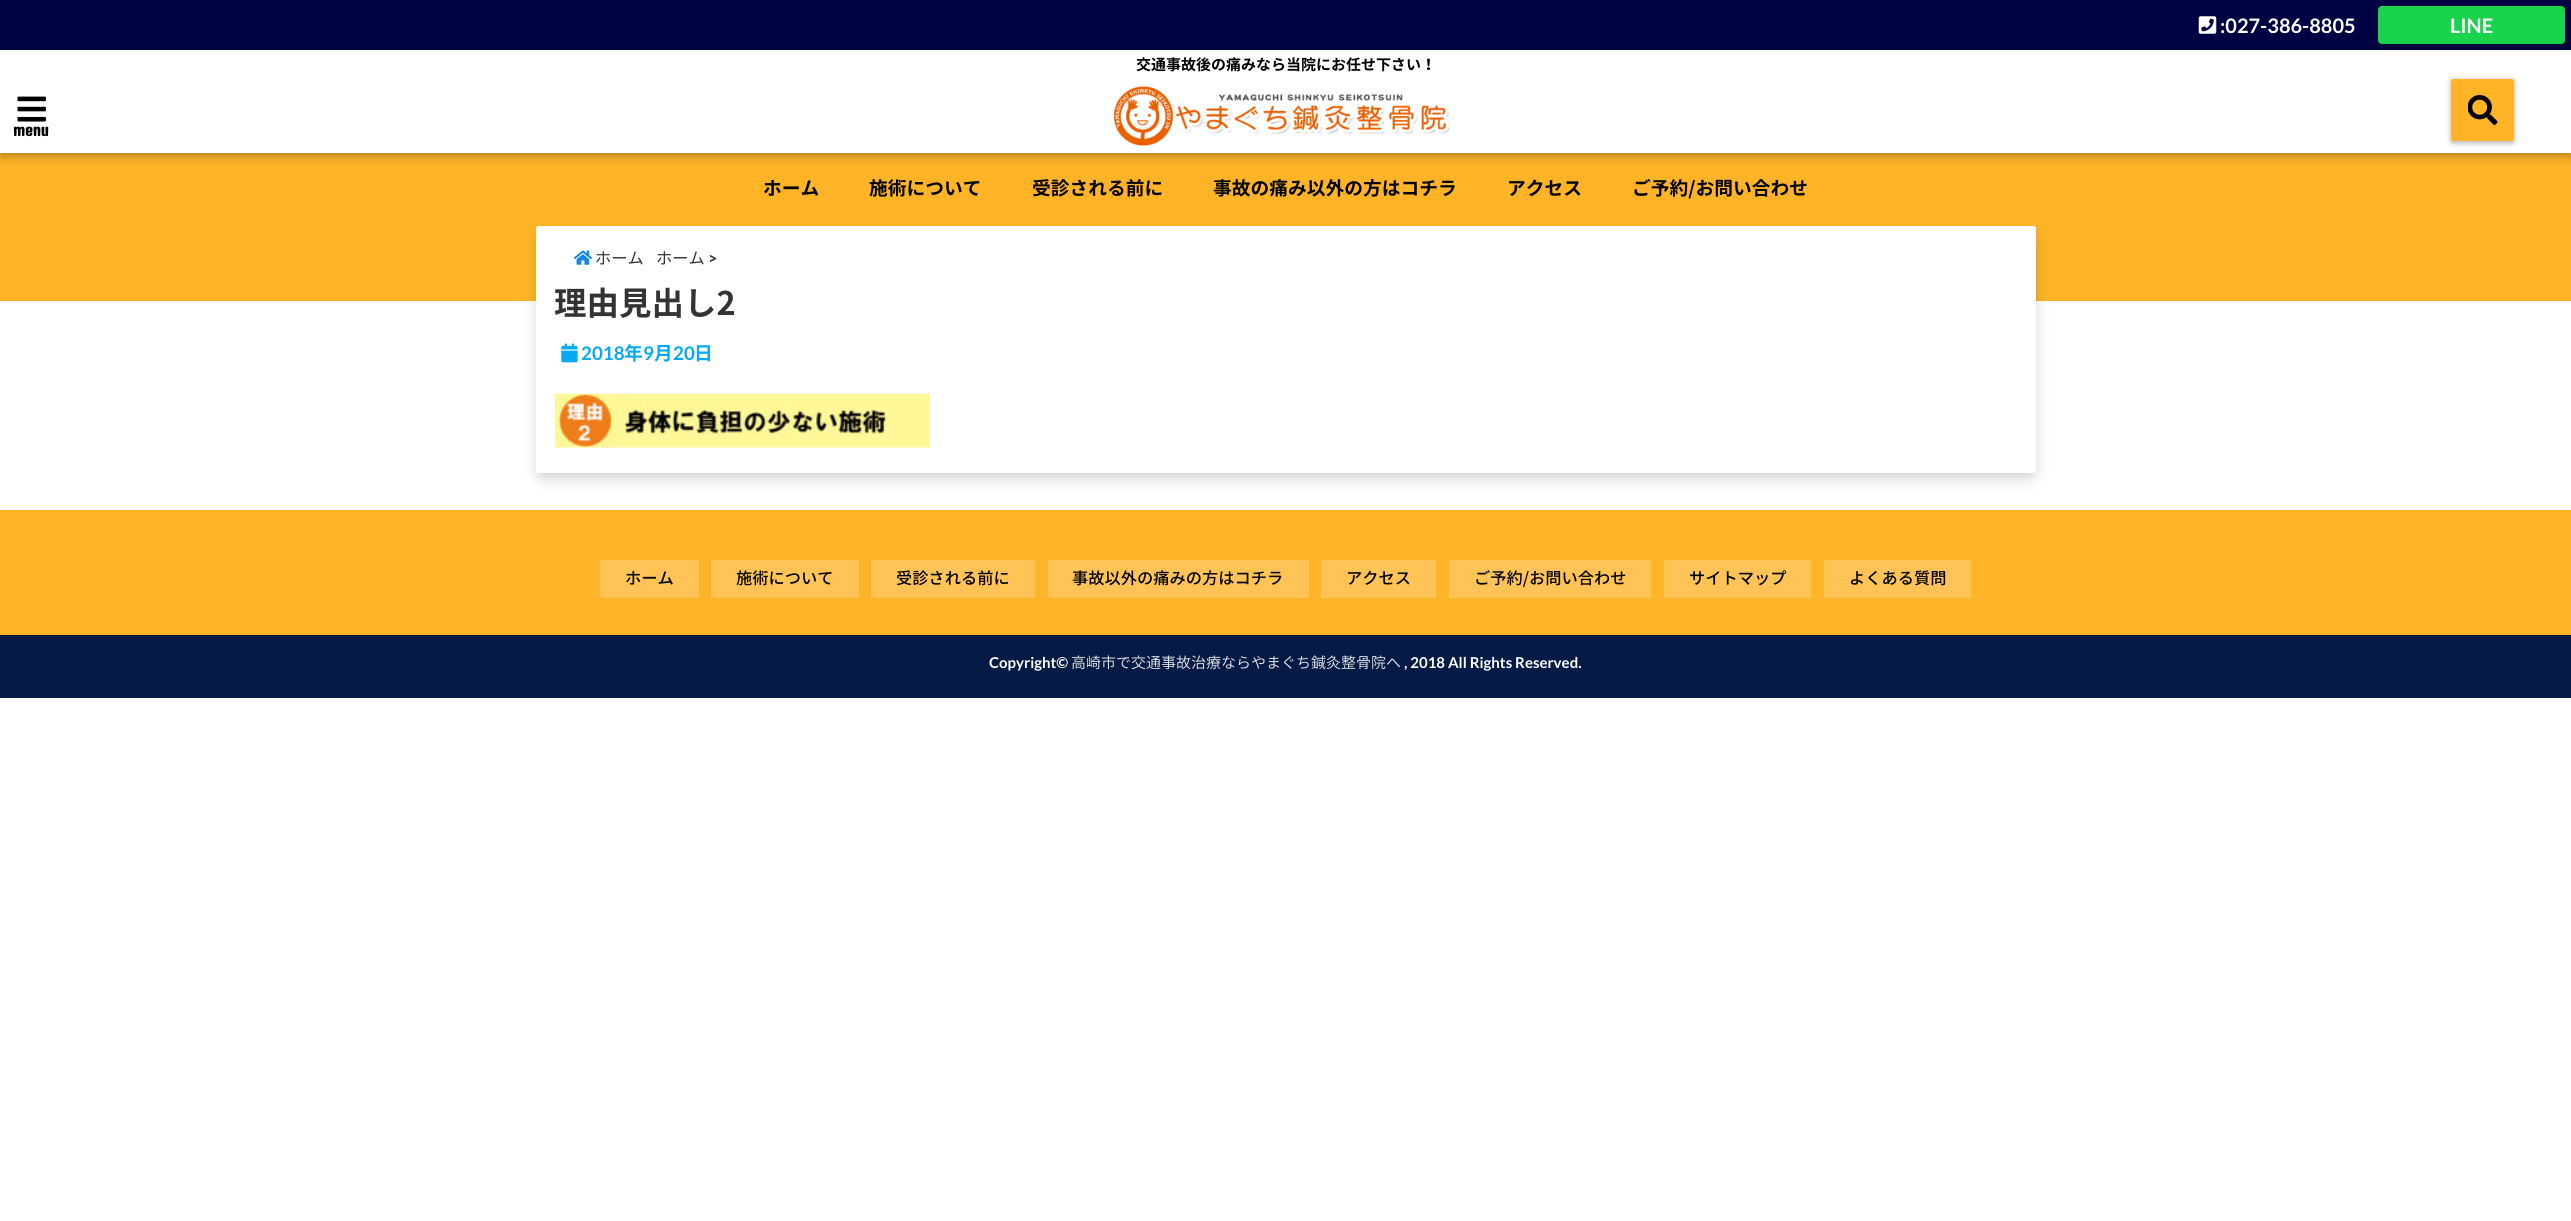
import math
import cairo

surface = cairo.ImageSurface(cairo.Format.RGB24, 2571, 1221)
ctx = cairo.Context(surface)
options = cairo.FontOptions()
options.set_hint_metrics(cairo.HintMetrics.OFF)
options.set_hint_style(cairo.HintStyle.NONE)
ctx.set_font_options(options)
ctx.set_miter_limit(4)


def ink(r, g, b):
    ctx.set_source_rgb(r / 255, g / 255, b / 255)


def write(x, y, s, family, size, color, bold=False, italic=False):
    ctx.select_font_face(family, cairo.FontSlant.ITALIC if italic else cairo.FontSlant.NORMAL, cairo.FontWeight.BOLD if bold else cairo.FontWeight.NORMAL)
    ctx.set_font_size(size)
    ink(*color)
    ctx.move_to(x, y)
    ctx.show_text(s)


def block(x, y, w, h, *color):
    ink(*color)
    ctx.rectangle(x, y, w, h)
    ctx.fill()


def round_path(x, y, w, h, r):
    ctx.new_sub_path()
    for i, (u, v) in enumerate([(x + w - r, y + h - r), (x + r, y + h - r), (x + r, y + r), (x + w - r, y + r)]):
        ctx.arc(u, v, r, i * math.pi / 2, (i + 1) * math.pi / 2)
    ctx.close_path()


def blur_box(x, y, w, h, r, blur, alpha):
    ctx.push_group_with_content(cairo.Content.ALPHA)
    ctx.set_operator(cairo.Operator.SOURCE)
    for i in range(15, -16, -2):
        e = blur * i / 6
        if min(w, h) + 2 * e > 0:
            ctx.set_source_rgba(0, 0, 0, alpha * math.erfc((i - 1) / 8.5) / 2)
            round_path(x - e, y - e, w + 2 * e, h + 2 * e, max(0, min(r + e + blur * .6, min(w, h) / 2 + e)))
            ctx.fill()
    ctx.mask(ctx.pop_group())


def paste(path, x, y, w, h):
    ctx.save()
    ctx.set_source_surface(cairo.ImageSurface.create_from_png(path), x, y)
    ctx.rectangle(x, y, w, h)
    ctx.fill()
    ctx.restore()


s1 = dict(family="Lato", size=20, color=(255, 255, 255), bold=True)
s2 = dict(family="Noto Sans JP", size=15, color=(0, 0, 0), bold=True)
s3 = dict(family="Denk One", size=15, color=(0, 0, 0), bold=True)
s4 = dict(family="Noto Sans JP", size=18.75, color=(0, 0, 0), bold=True)
s5 = dict(family="Noto Sans JP", size=16.25, color=(51, 51, 51))
s6 = dict(family="Lato", size=16.25, color=(51, 51, 51), bold=True)
s7 = dict(family="Noto Sans JP", size=32.5, color=(51, 51, 51), bold=True)
s8 = dict(family="Lato", size=18.75, color=(6, 169, 244), bold=True)
s9 = dict(family="Noto Sans JP", size=18.75, color=(6, 169, 244), bold=True)
s10 = dict(family="Noto Sans JP Medium", size=16.25, color=(0, 0, 0))
s11 = dict(family="Lato", size=15, color=(255, 255, 255), bold=True)
s12 = dict(family="Noto Sans JP Light", size=15, color=(234, 234, 234))

ink(255, 255, 255)
ctx.paint()
block(0, 0, 2571, 50, 0, 1, 66)
paste("pic1.png", 2198, 16, 19, 18)
write(2220, 33, ":027-386-8805", **s1)
ink(0, 0, 0)
blur_box(2378, 8, 187, 37, 4, 3, 0.3)
ink(25, 211, 76)
round_path(2378, 6, 187, 38, 4)
ctx.fill()
write(2450, 33, "LINE", **s1)
block(0, 226, 2571, 75, 255, 180, 40)
ink(0, 0, 0)
blur_box(543, 239, 1487, 234, 0, 9.5, 0.3)
block(0, 153, 2571, 73, 255, 180, 40)
ink(0, 0, 0)
blur_box(0, 54, 2571, 102, 0, 5, 0.3)
block(0, 50, 2571, 103, 255, 255, 255)
write(1136, 70, "交通事故後の痛みなら当院にお任せ下さい！", **s2)
paste("pic2.png", 17, 96, 29, 26)
write(13, 136, "menu", **s3)
paste("pic3.png", 1113, 85, 337, 61)
ink(0, 0, 0)
blur_box(2451, 80, 63, 63, 2, 3, 0.3)
ink(255, 180, 40)
round_path(2451, 79, 63, 62, 2)
ctx.fill()
paste("pic4.png", 2468, 95, 30, 30)
write(763, 195, "ホーム", **s4)
write(869, 195, "施術について", **s4)
write(1032, 195, "受診される前に", **s4)
write(1213, 195, "事故の痛み以外の方はコチラ", **s4)
write(1507, 195, "アクセス", **s4)
write(1632, 195, "ご予約/お問い合わせ", **s4)
ink(255, 255, 255)
round_path(536, 226, 1500, 247, 2.5)
ctx.fill()
paste("pic5.png", 573, 250, 19, 15)
write(595, 264, "ホーム", **s5)
write(656, 264, "ホーム", **s5)
write(708, 264, ">", **s6)
write(554, 315, "理由見出し2", **s7)
paste("pic6.png", 561, 343, 17, 20)
write(581, 360, "2018", **s8)
write(624, 360, "年", **s9)
write(643, 360, "9", **s8)
write(654, 360, "月", **s9)
write(673, 360, "20", **s8)
write(694, 360, "日", **s9)
paste("pic7.png", 555, 393, 375, 55)
block(0, 510, 2571, 125, 255, 180, 40)
block(600, 560, 99, 38, 255, 196, 85)
write(625, 584, "ホーム", **s10)
block(711, 560, 148, 38, 255, 196, 85)
write(736, 584, "施術について", **s10)
block(871, 560, 164, 38, 255, 196, 85)
write(896, 584, "受診される前に", **s10)
block(1048, 560, 261, 38, 255, 196, 85)
write(1072, 584, "事故以外の痛みの方はコチラ", **s10)
block(1321, 560, 115, 38, 255, 196, 85)
write(1346, 584, "アクセス", **s10)
block(1449, 560, 202, 38, 255, 196, 85)
write(1474, 584, "ご予約/お問い合わせ", **s10)
block(1664, 560, 147, 38, 255, 196, 85)
write(1689, 584, "サイトマップ", **s10)
block(1824, 560, 147, 38, 255, 196, 85)
write(1849, 584, "よくある質問", **s10)
block(0, 635, 2571, 63, 5, 26, 68)
write(989, 668, "Copyright©", **s11)
write(1071, 668, "高崎市で交通事故治療ならやまぐち鍼灸整骨院へ", **s12)
write(1404, 668, ", 2018 All Rights Reserved.", **s11)
surface.write_to_png("screenshot.png")
